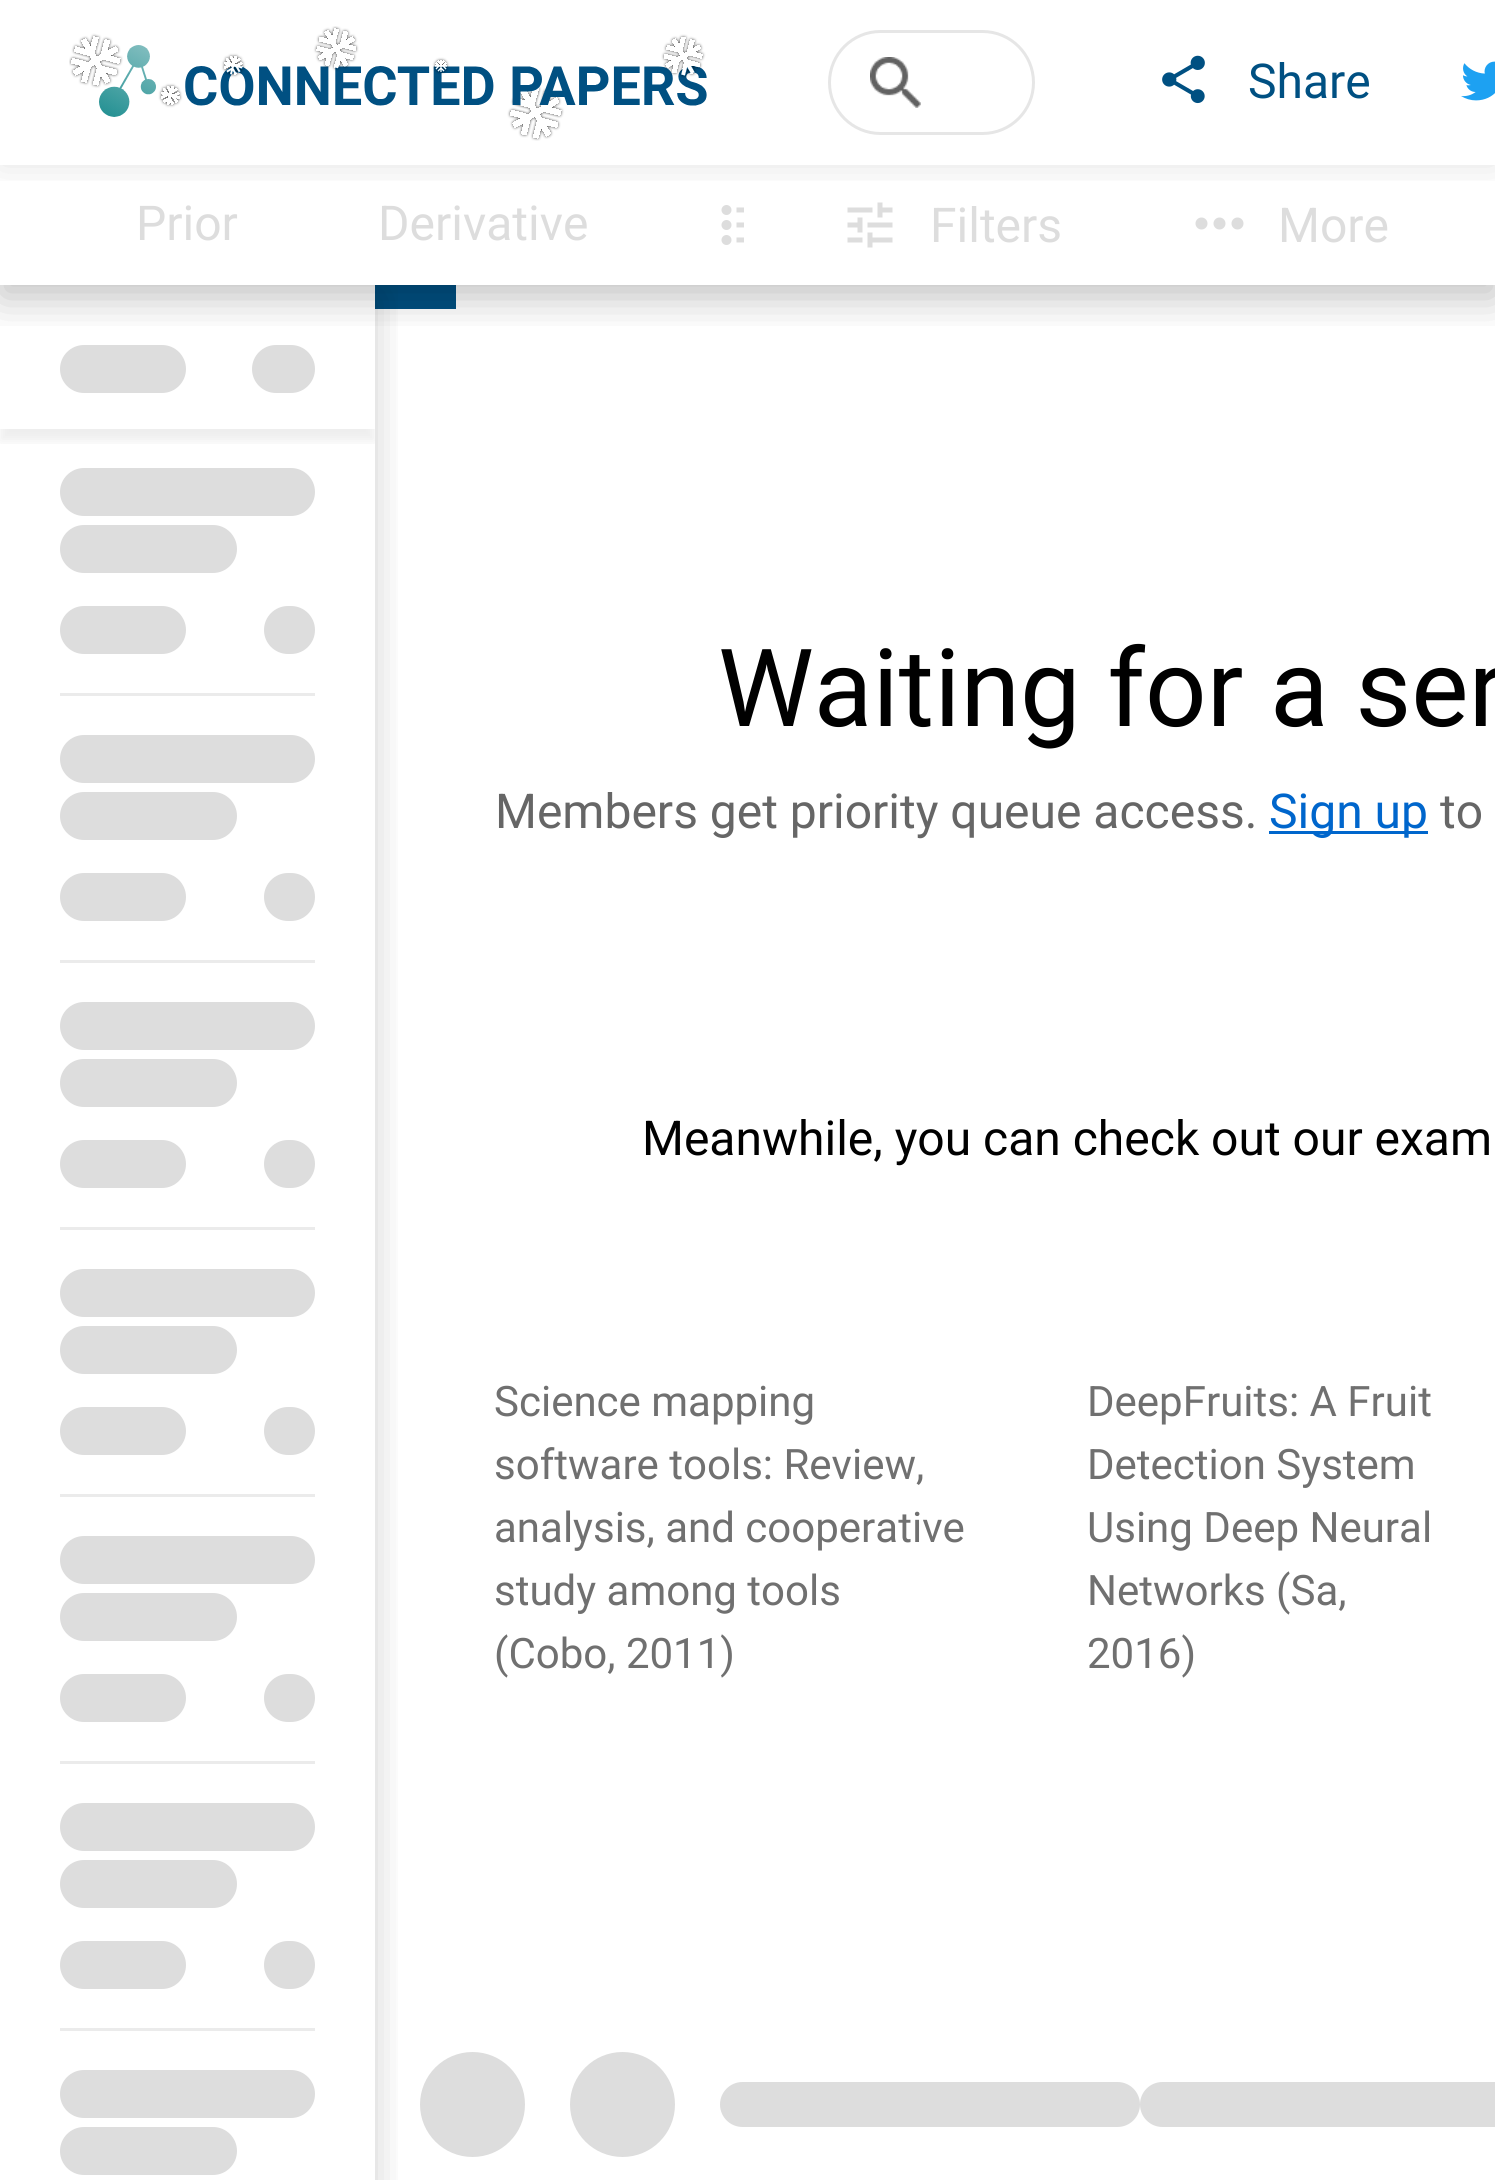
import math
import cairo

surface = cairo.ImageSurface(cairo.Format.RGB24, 1495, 2180)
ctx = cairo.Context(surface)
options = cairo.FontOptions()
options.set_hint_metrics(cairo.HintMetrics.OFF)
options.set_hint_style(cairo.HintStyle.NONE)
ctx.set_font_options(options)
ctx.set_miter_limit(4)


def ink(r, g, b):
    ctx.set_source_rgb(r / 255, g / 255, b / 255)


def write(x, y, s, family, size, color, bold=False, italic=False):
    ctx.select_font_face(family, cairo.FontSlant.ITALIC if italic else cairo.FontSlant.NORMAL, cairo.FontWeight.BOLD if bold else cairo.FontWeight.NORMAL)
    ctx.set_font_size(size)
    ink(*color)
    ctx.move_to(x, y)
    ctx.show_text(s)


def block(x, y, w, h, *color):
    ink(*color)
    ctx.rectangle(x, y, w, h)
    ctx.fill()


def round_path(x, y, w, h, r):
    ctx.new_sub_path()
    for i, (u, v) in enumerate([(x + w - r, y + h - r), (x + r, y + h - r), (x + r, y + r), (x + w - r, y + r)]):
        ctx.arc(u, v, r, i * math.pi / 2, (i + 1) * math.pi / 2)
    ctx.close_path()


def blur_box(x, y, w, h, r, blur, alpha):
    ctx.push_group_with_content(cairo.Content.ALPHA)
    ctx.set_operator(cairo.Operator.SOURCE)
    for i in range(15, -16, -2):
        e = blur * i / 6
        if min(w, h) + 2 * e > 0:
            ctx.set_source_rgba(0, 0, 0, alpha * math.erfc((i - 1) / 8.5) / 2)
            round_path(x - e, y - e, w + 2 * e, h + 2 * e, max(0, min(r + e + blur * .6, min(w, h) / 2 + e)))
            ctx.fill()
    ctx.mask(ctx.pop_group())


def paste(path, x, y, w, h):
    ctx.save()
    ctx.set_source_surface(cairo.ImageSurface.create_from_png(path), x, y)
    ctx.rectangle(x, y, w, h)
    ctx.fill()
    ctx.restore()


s1 = dict(family="Roboto", size=48, color=(0, 80, 130))
s2 = dict(family="Roboto", size=48, color=(221, 221, 221))
s3 = dict(family="Roboto", size=108, color=(0, 0, 0))
s4 = dict(family="Roboto", size=48, color=(102, 102, 102))
s5 = dict(family="Roboto", size=48, color=(0, 102, 204))
s6 = dict(family="Roboto", size=48, color=(0, 0, 0))
s7 = dict(family="Roboto", size=42, color=(112, 112, 112))

ink(255, 255, 255)
ctx.paint()
block(375, 285, 81, 24, 0, 80, 130)
ctx.save()
ctx.rectangle(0, 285, 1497, 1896)
ctx.clip()
ctx.rectangle(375, 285, 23, 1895)
ctx.clip()
ink(0, 0, 0)
blur_box(0, 297, 375, 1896, 0, 18, 0.19)
ctx.restore()
ctx.save()
ctx.rectangle(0, 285, 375, 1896)
ctx.clip()
ctx.rectangle(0, 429, 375, 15)
ctx.clip()
ink(0, 0, 0)
blur_box(0, 297, 375, 144, 0, 6, 0.07)
ctx.restore()
ink(221, 221, 221)
round_path(60, 345, 126, 48, 24)
ctx.fill()
round_path(252, 345, 63, 48, 24)
ctx.fill()
ctx.save()
ctx.rectangle(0, 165, 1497, 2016)
ctx.clip()
ctx.rectangle(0, 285, 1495, 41)
ctx.clip()
ink(0, 0, 0)
blur_box(0, 177, 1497, 120, 0, 21, 0.25)
ctx.restore()
paste("pic5.png", 721, 205, 23, 40)
paste("pic6.png", 847, 202, 46, 46)
paste("pic7.png", 1195, 217, 49, 13)
ctx.save()
ctx.rectangle(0, 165, 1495, 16)
ctx.clip()
ink(0, 0, 0)
blur_box(0, 0, 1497, 165, 0, 18, 0.11)
ctx.restore()
paste("pic1.png", 69, 26, 638, 115)
paste("pic2.png", 870, 57, 51, 51)
round_path(829.5, 31.5, 204, 102, 51)
ink(230, 230, 230)
ctx.set_line_width(3)
ctx.stroke()
paste("pic3.png", 1162, 55, 43, 49)
write(1248, 98, "Share", **s1)
paste("pic4.png", 1461, 61, 34, 40)
write(136, 240, "Prior", **s2)
write(378, 240, "Derivative", **s2)
write(930, 242, "Filters", **s2)
write(1278, 242, "More", **s2)
round_path(60, 468, 255, 48, 24)
ctx.fill()
round_path(60, 525, 177, 48, 24)
ctx.fill()
round_path(60, 606, 126, 48, 24)
ctx.fill()
round_path(264, 606, 51, 48, 24)
ctx.fill()
block(60, 693, 255, 3, 235, 235, 235)
ink(221, 221, 221)
round_path(60, 735, 255, 48, 24)
ctx.fill()
round_path(60, 792, 177, 48, 24)
ctx.fill()
round_path(60, 873, 126, 48, 24)
ctx.fill()
round_path(264, 873, 51, 48, 24)
ctx.fill()
block(60, 960, 255, 3, 235, 235, 235)
ink(221, 221, 221)
round_path(60, 1002, 255, 48, 24)
ctx.fill()
round_path(60, 1059, 177, 48, 24)
ctx.fill()
round_path(60, 1140, 126, 48, 24)
ctx.fill()
round_path(264, 1140, 51, 48, 24)
ctx.fill()
block(60, 1227, 255, 3, 235, 235, 235)
ink(221, 221, 221)
round_path(60, 1269, 255, 48, 24)
ctx.fill()
round_path(60, 1326, 177, 48, 24)
ctx.fill()
round_path(60, 1407, 126, 48, 24)
ctx.fill()
round_path(264, 1407, 51, 48, 24)
ctx.fill()
block(60, 1494, 255, 3, 235, 235, 235)
ink(221, 221, 221)
round_path(60, 1536, 255, 48, 24)
ctx.fill()
round_path(60, 1593, 177, 48, 24)
ctx.fill()
round_path(60, 1674, 126, 48, 24)
ctx.fill()
round_path(264, 1674, 51, 48, 24)
ctx.fill()
block(60, 1761, 255, 3, 235, 235, 235)
ink(221, 221, 221)
round_path(60, 1803, 255, 48, 24)
ctx.fill()
round_path(60, 1860, 177, 48, 24)
ctx.fill()
round_path(60, 1941, 126, 48, 24)
ctx.fill()
round_path(264, 1941, 51, 48, 24)
ctx.fill()
block(60, 2028, 255, 3, 235, 235, 235)
ink(221, 221, 221)
round_path(60, 2070, 255, 48, 24)
ctx.fill()
round_path(60, 2127, 177, 48, 24)
ctx.fill()
write(718, 726, "Waiting for a ser", **s3)
write(495, 828, "Members get priority queue access.", **s4)
block(1269, 831, 159, 3, 0, 102, 204)
write(1269, 828, "Sign up", **s5)
write(1440, 828, "to", **s4)
write(642, 1155, "Meanwhile, you can check out our exam", **s6)
write(494, 1416, "Science mapping", **s7)
write(494, 1479, "software tools: Review,", **s7)
write(494, 1542, "analysis, and cooperative", **s7)
write(494, 1605, "study among tools", **s7)
write(494, 1668, "(Cobo, 2011)", **s7)
write(1087, 1416, "DeepFruits: A Fruit", **s7)
write(1087, 1479, "Detection System", **s7)
write(1087, 1542, "Using Deep Neural", **s7)
write(1087, 1605, "Networks (Sa,", **s7)
write(1087, 1668, "2016)", **s7)
ink(221, 221, 221)
ctx.new_path()
ctx.arc(472.5, 2104.5, 52.5, 0, 2 * math.pi)
ctx.fill()
ctx.arc(622.5, 2104.5, 52.5, 0, 2 * math.pi)
ctx.fill()
round_path(720, 2082, 420, 45, 22.5)
ctx.fill()
ctx.new_path()
ctx.move_to(1162.5, 2082)
ctx.line_to(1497, 2082)
ctx.line_to(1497, 2127)
ctx.line_to(1162.5, 2127)
ctx.curve_to(1150, 2127, 1140, 2117, 1140, 2104.5)
ctx.curve_to(1140, 2092, 1150, 2082, 1162.5, 2082)
ctx.close_path()
ctx.fill()
surface.write_to_png("screenshot.png")
